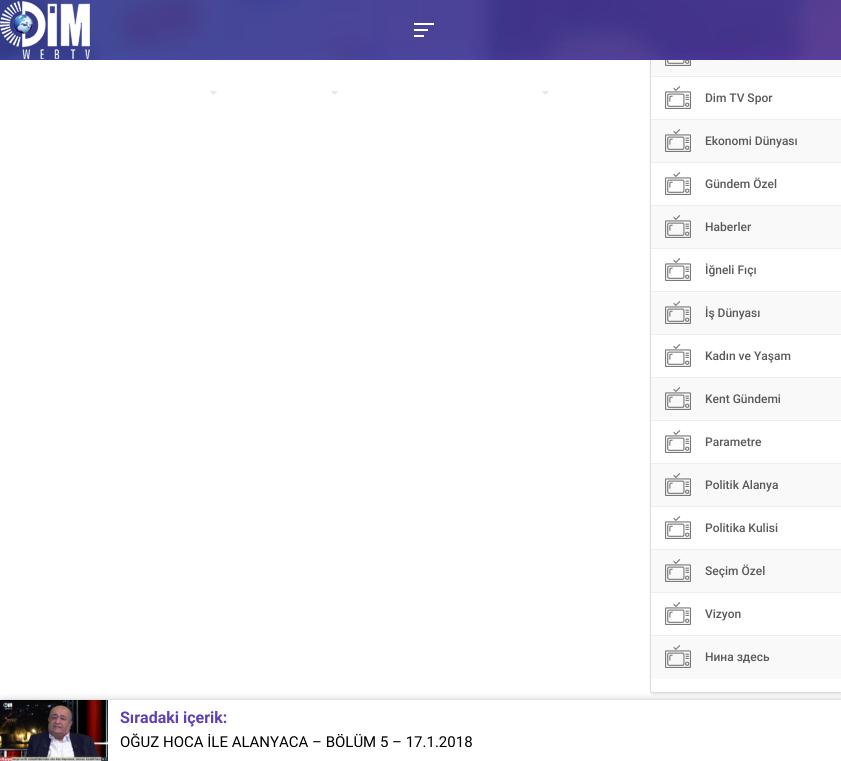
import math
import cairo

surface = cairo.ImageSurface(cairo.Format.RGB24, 841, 761)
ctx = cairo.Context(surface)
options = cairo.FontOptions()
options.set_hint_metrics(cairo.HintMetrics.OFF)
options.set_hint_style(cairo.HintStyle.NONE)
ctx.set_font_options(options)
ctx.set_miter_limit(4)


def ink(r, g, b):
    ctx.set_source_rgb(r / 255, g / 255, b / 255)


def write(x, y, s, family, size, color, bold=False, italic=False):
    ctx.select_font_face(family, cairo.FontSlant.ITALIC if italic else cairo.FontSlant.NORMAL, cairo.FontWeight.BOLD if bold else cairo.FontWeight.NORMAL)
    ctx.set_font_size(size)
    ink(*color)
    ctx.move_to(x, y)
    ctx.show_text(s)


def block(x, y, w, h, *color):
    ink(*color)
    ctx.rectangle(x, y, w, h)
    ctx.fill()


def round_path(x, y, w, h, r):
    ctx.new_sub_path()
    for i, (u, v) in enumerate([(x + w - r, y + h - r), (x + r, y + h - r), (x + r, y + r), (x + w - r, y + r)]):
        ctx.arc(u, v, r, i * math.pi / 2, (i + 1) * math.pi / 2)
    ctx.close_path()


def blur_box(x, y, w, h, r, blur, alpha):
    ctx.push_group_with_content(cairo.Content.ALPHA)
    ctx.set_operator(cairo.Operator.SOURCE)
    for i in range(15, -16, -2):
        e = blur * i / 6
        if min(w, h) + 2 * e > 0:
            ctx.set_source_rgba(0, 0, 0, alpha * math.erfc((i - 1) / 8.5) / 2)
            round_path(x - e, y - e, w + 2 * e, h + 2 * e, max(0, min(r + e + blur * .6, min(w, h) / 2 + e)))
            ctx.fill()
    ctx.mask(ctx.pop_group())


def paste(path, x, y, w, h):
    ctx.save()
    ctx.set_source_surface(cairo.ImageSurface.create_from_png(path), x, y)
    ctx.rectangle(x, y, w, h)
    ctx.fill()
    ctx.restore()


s1 = dict(family="Roboto Medium", size=12, color=(89, 89, 89))
s2 = dict(family="Roboto", size=16, color=(95, 62, 182), bold=True)
s3 = dict(family="Roboto", size=15, color=(0, 0, 0))

ink(255, 255, 255)
ctx.paint()
ink(0, 0, 0)
blur_box(650, -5, 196, 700, 3, 0.5, 0.07)
ink(255, 255, 255)
round_path(650.5, -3.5, 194, 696, 2.5)
ctx.fill_preserve()
ink(220, 220, 220)
ctx.set_line_width(1)
ctx.stroke()
gradient = cairo.LinearGradient(841, 30, 0, 30)
gradient.add_color_stop_rgba(0, 0.373, 0.243, 0.714, 1)
gradient.add_color_stop_rgba(1, 0.259, 0.31, 0.71, 1)
ctx.set_source(gradient)
ctx.rectangle(0, 0, 841, 60)
ctx.fill()
paste("pic1.png", 0, 0, 841, 60)
paste("pic2.png", 0, 1, 90, 58)
block(414, 29, 14, 2, 255, 255, 255)
block(414, 23, 20, 2, 255, 255, 255)
block(414, 35, 10, 2, 255, 255, 255)
paste("pic3.png", 210, 91, 7, 4)
paste("pic3.png", 331, 91, 7, 4)
paste("pic3.png", 542, 91, 7, 4)
block(651, 60, 190, 16, 249, 249, 249)
block(651, 76, 190, 1, 238, 238, 238)
paste("pic4.png", 665, 60, 26, 6)
block(651, 119, 190, 1, 238, 238, 238)
paste("pic5.png", 665, 86, 26, 23)
write(705, 102, "Dim TV Spor", **s1)
block(651, 120, 190, 42, 249, 249, 249)
block(651, 162, 190, 1, 238, 238, 238)
paste("pic6.png", 665, 129, 26, 23)
write(705, 145, "Ekonomi Dünyası", **s1)
block(651, 205, 190, 1, 238, 238, 238)
paste("pic5.png", 665, 172, 26, 23)
write(705, 188, "Gündem Özel", **s1)
block(651, 206, 190, 42, 249, 249, 249)
block(651, 248, 190, 1, 238, 238, 238)
paste("pic6.png", 665, 215, 26, 23)
write(705, 231, "Haberler", **s1)
block(651, 291, 190, 1, 238, 238, 238)
paste("pic5.png", 665, 258, 26, 23)
write(705, 274, "İğneli Fıçı", **s1)
block(651, 292, 190, 42, 249, 249, 249)
block(651, 334, 190, 1, 238, 238, 238)
paste("pic6.png", 665, 301, 26, 23)
write(705, 317, "İş Dünyası", **s1)
block(651, 377, 190, 1, 238, 238, 238)
paste("pic5.png", 665, 344, 26, 23)
write(705, 360, "Kadın ve Yaşam", **s1)
block(651, 378, 190, 42, 249, 249, 249)
block(651, 420, 190, 1, 238, 238, 238)
paste("pic6.png", 665, 387, 26, 23)
write(705, 403, "Kent Gündemi", **s1)
block(651, 463, 190, 1, 238, 238, 238)
paste("pic5.png", 665, 430, 26, 23)
write(705, 446, "Parametre", **s1)
block(651, 464, 190, 42, 249, 249, 249)
block(651, 506, 190, 1, 238, 238, 238)
paste("pic6.png", 665, 473, 26, 23)
write(705, 489, "Politik Alanya", **s1)
block(651, 549, 190, 1, 238, 238, 238)
paste("pic5.png", 665, 516, 26, 23)
write(705, 532, "Politika Kulisi", **s1)
block(651, 550, 190, 42, 249, 249, 249)
block(651, 592, 190, 1, 238, 238, 238)
paste("pic6.png", 665, 559, 26, 23)
write(705, 575, "Seçim Özel", **s1)
block(651, 635, 190, 1, 238, 238, 238)
paste("pic5.png", 665, 602, 26, 23)
write(705, 618, "Vizyon", **s1)
block(651, 636, 190, 43, 249, 249, 249)
paste("pic6.png", 665, 645, 26, 23)
write(705, 661, "Нина здесь", **s1)
ink(0, 0, 0)
blur_box(2, 701, 839, 59, 0, 4, 0.3)
block(0, 700, 841, 61, 255, 255, 255)
paste("pic7.png", 0, 700, 108, 61)
write(120, 723, "Sıradaki içerik:", **s2)
ctx.save()
ctx.rectangle(108, 722, 365, 25)
ctx.clip()
write(120, 747, "OĞUZ HOCA İLE ALANYACA – BÖLÜM 5 – 17.1.2018", **s3)
ctx.restore()
surface.write_to_png("screenshot.png")
